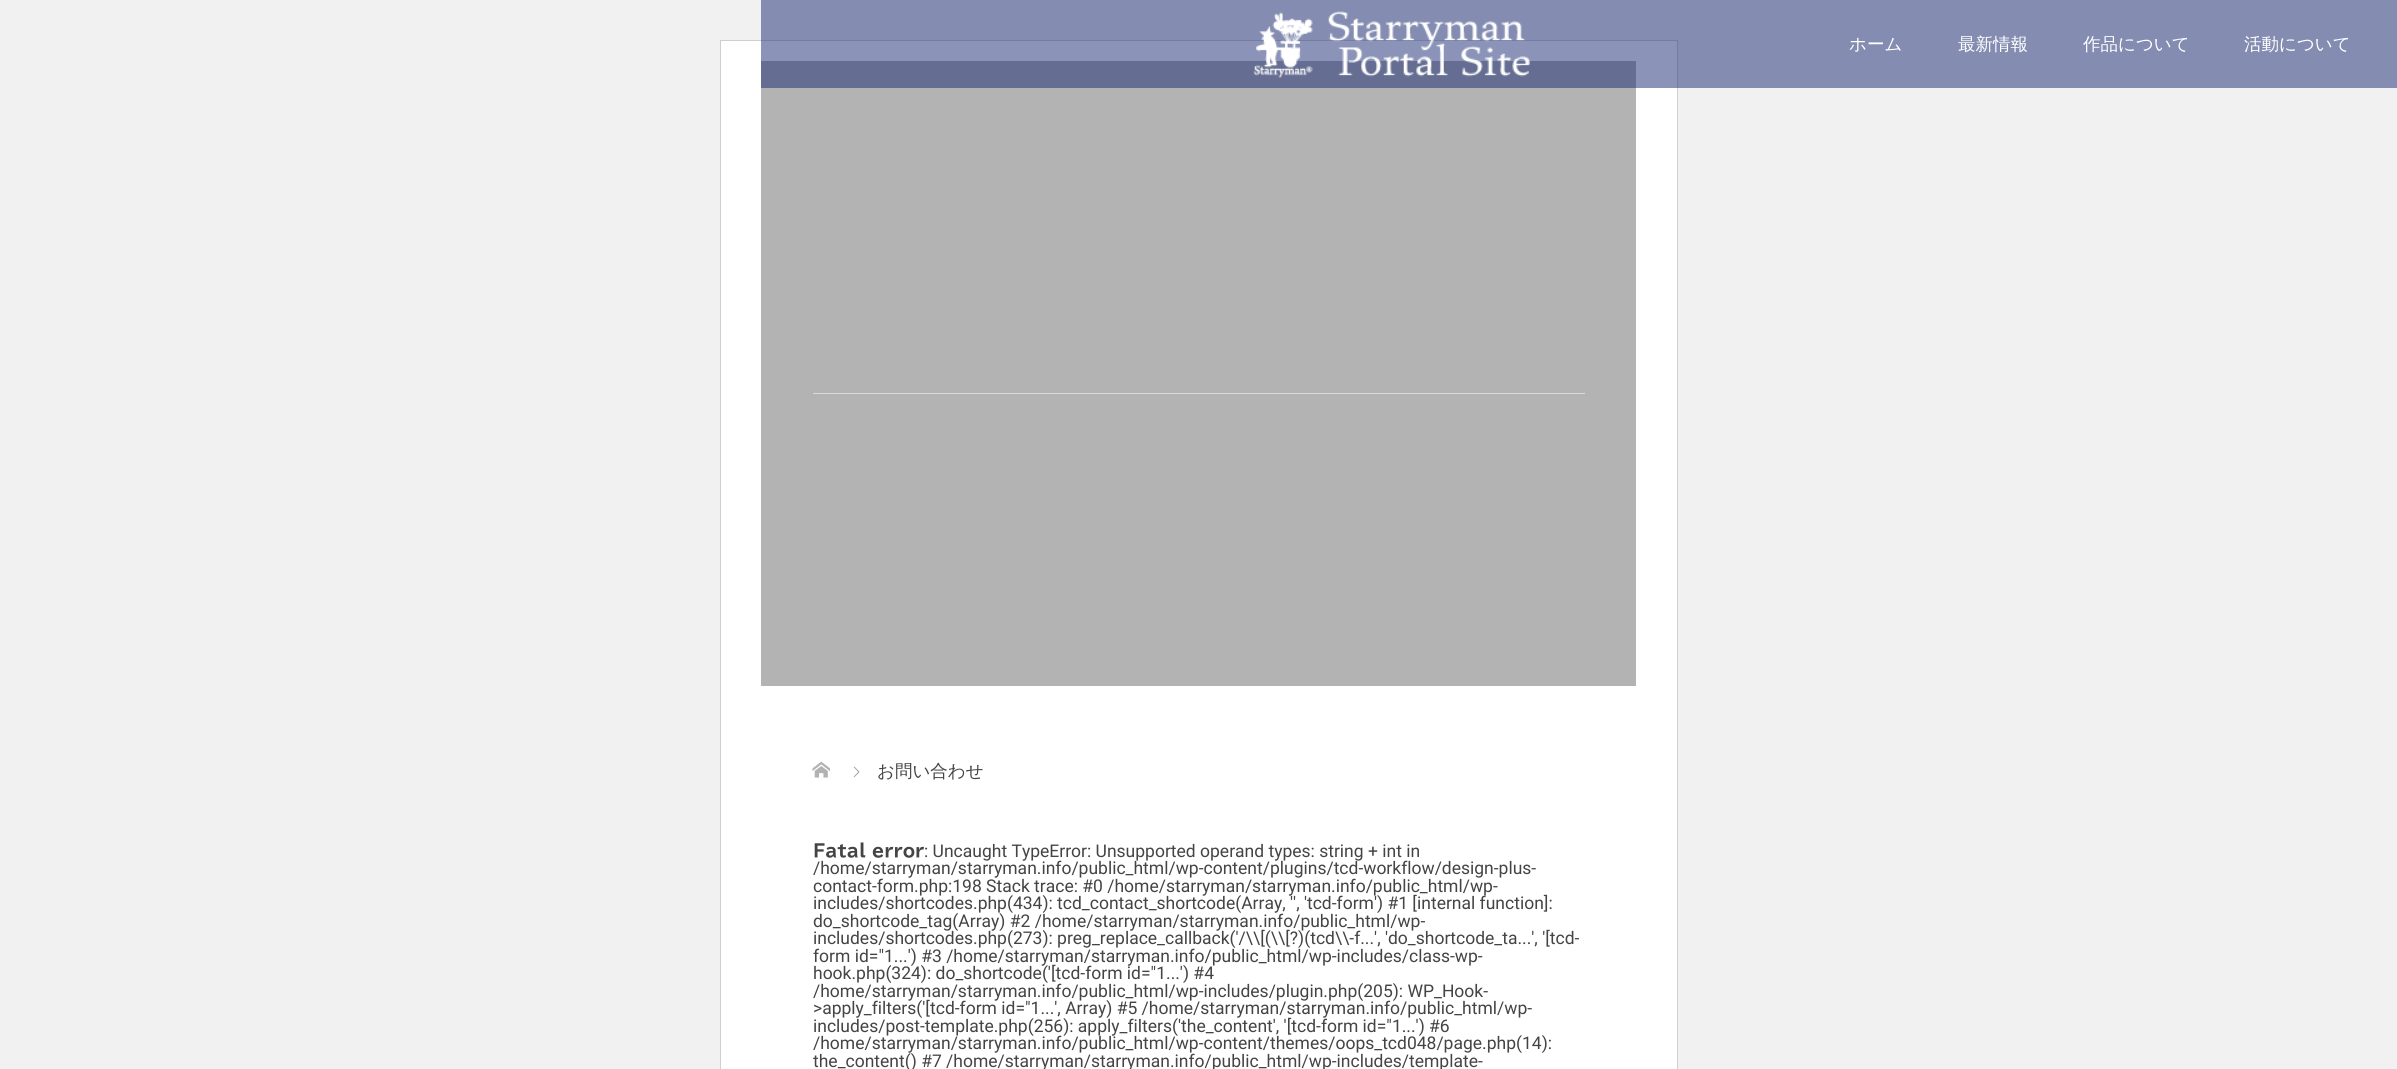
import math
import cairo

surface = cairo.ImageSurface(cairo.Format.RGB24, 2397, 1069)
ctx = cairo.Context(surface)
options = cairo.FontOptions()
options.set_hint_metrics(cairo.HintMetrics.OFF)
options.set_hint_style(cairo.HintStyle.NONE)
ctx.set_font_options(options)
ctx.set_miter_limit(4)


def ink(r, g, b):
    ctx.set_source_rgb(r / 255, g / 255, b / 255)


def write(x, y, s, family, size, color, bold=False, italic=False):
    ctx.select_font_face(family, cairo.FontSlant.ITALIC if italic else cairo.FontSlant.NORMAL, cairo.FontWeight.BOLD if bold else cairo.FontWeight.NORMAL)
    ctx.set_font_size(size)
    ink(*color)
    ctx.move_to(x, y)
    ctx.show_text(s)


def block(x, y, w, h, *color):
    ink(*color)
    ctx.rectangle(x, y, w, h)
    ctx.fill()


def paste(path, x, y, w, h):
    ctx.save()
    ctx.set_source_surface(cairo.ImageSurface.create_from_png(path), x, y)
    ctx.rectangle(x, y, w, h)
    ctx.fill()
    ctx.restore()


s1 = dict(family="WenQuanYi Zen Hei Medium", size=17.5, color=(255, 255, 255))
s2 = dict(family="WenQuanYi Zen Hei Medium", size=17.5, color=(68, 68, 68))
s3 = dict(family="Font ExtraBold", size=17.5, color=(68, 68, 68))
s4 = dict(family="Roboto", size=17.5, color=(68, 68, 68))

ink(241, 241, 241)
ctx.paint()
ink(255, 255, 255)
ctx.rectangle(720.5, 40.5, 957, 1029)
ctx.fill_preserve()
ink(204, 208, 212)
ctx.set_line_width(1)
ctx.stroke()
block(761, 61, 875, 625, 179, 179, 179)
ctx.set_source_rgba(0.094, 0.165, 0.447, 0.5)
ctx.rectangle(761, 0, 1636, 88)
ctx.fill()
paste("pic1.png", 1253, 11, 277, 67)
write(1849, 50, "ホーム", **s1)
write(1958, 50, "最新情報", **s1)
write(2083, 50, "作品について", **s1)
write(2244, 50, "活動について", **s1)
block(813, 393, 772, 1, 218, 218, 218)
paste("pic2.png", 812, 761, 18, 17)
paste("pic3.png", 853, 766, 7, 12)
write(877, 777, "お問い合わせ", **s2)
write(813, 857, "Fatal error", **s3)
write(924, 857, ": Uncaught TypeError: Unsupported operand types: string + int in", **s4)
write(813, 874, "/home/starryman/starryman.info/public_html/wp-content/plugins/tcd-workflow/design-plus-", **s4)
write(813, 892, "contact-form.php:198 Stack trace: #0 /home/starryman/starryman.info/public_html/wp-", **s4)
write(813, 909, "includes/shortcodes.php(434): tcd_contact_shortcode(Array, '', 'tcd-form') #1 [internal function]:", **s4)
write(813, 927, "do_shortcode_tag(Array) #2 /home/starryman/starryman.info/public_html/wp-", **s4)
write(813, 944, "includes/shortcodes.php(273): preg_replace_callback('/\\\\[(\\\\[?)(tcd\\\\-f...', 'do_shortcode_ta...', '[tcd-", **s4)
write(813, 962, "form id=\"1...') #3 /home/starryman/starryman.info/public_html/wp-includes/class-wp-", **s4)
write(813, 979, "hook.php(324): do_shortcode('[tcd-form id=\"1...') #4", **s4)
write(813, 997, "/home/starryman/starryman.info/public_html/wp-includes/plugin.php(205): WP_Hook-", **s4)
write(813, 1014, ">apply_filters('[tcd-form id=\"1...', Array) #5 /home/starryman/starryman.info/public_html/wp-", **s4)
write(813, 1032, "includes/post-template.php(256): apply_filters('the_content', '[tcd-form id=\"1...') #6", **s4)
write(813, 1049, "/home/starryman/starryman.info/public_html/wp-content/themes/oops_tcd048/page.php(14):", **s4)
write(813, 1067, "the_content() #7 /home/starryman/starryman.info/public_html/wp-includes/template-", **s4)
surface.write_to_png("screenshot.png")
